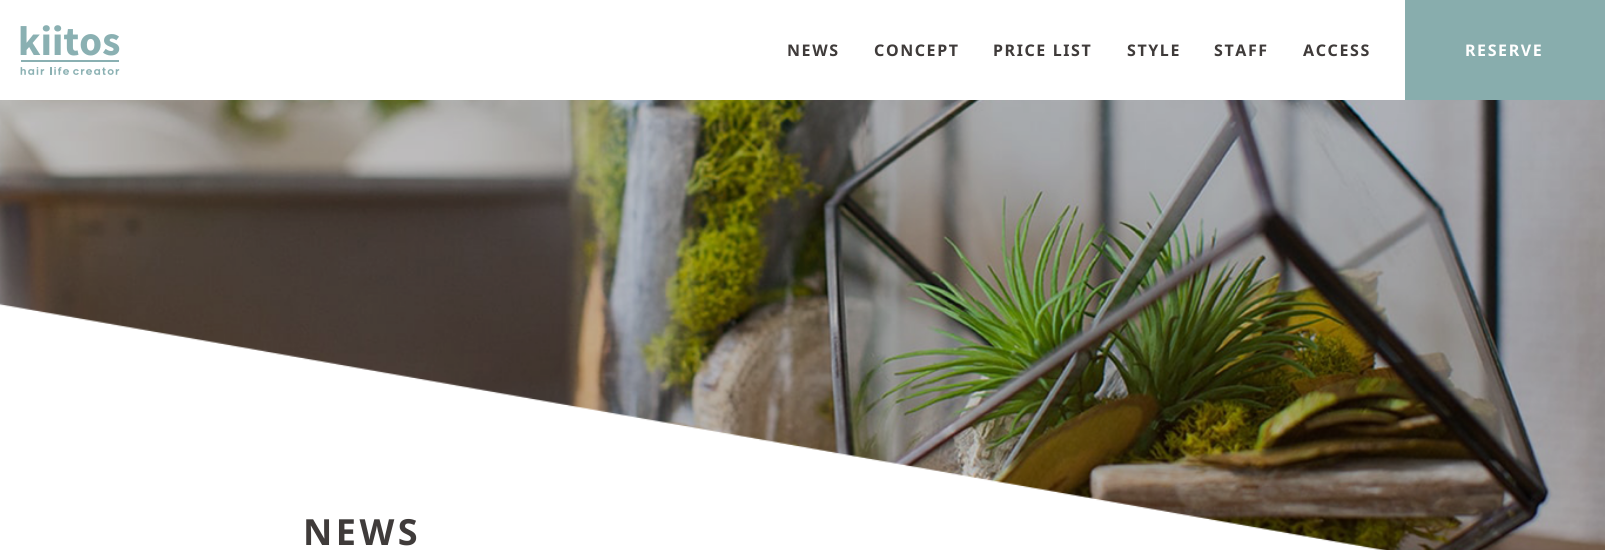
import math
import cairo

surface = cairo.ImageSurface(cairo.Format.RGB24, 1605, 550)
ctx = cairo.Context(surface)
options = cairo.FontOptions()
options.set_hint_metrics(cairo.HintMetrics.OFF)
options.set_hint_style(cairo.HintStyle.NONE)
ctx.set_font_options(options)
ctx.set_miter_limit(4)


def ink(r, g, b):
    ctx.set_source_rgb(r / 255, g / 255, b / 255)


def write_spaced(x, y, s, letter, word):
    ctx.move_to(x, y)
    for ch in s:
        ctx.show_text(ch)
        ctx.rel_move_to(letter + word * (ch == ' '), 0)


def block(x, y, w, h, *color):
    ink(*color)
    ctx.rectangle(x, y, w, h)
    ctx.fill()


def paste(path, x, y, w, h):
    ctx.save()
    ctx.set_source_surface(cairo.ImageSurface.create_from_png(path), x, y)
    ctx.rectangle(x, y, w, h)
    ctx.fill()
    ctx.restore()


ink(255, 255, 255)
ctx.paint()
paste("pic1.png", 20, 25, 100, 50)
ctx.select_font_face("Noto Sans", cairo.FontSlant.NORMAL, cairo.FontWeight.BOLD)
ctx.set_font_size(16)
ink(63, 59, 58)
write_spaced(787, 56, "NEWS", 1.6, 0)
write_spaced(874, 56, "CONCEPT", 1.6, 0)
write_spaced(993, 56, "PRICE LIST", 1.6, 0)
write_spaced(1127, 56, "STYLE", 1.6, 0)
write_spaced(1214, 56, "STAFF", 1.6, 0)
write_spaced(1303, 56, "ACCESS", 1.6, 0)
block(1405, 0, 200, 100, 136, 173, 173)
ink(255, 255, 255)
write_spaced(1465, 56, "RESERVE", 1.6, 0)
paste("pic2.png", 0, 100, 1605, 450)
ctx.set_font_size(36)
ink(63, 59, 58)
write_spaced(303, 545, "NEWS", 3.5, 0)
surface.write_to_png("screenshot.png")
